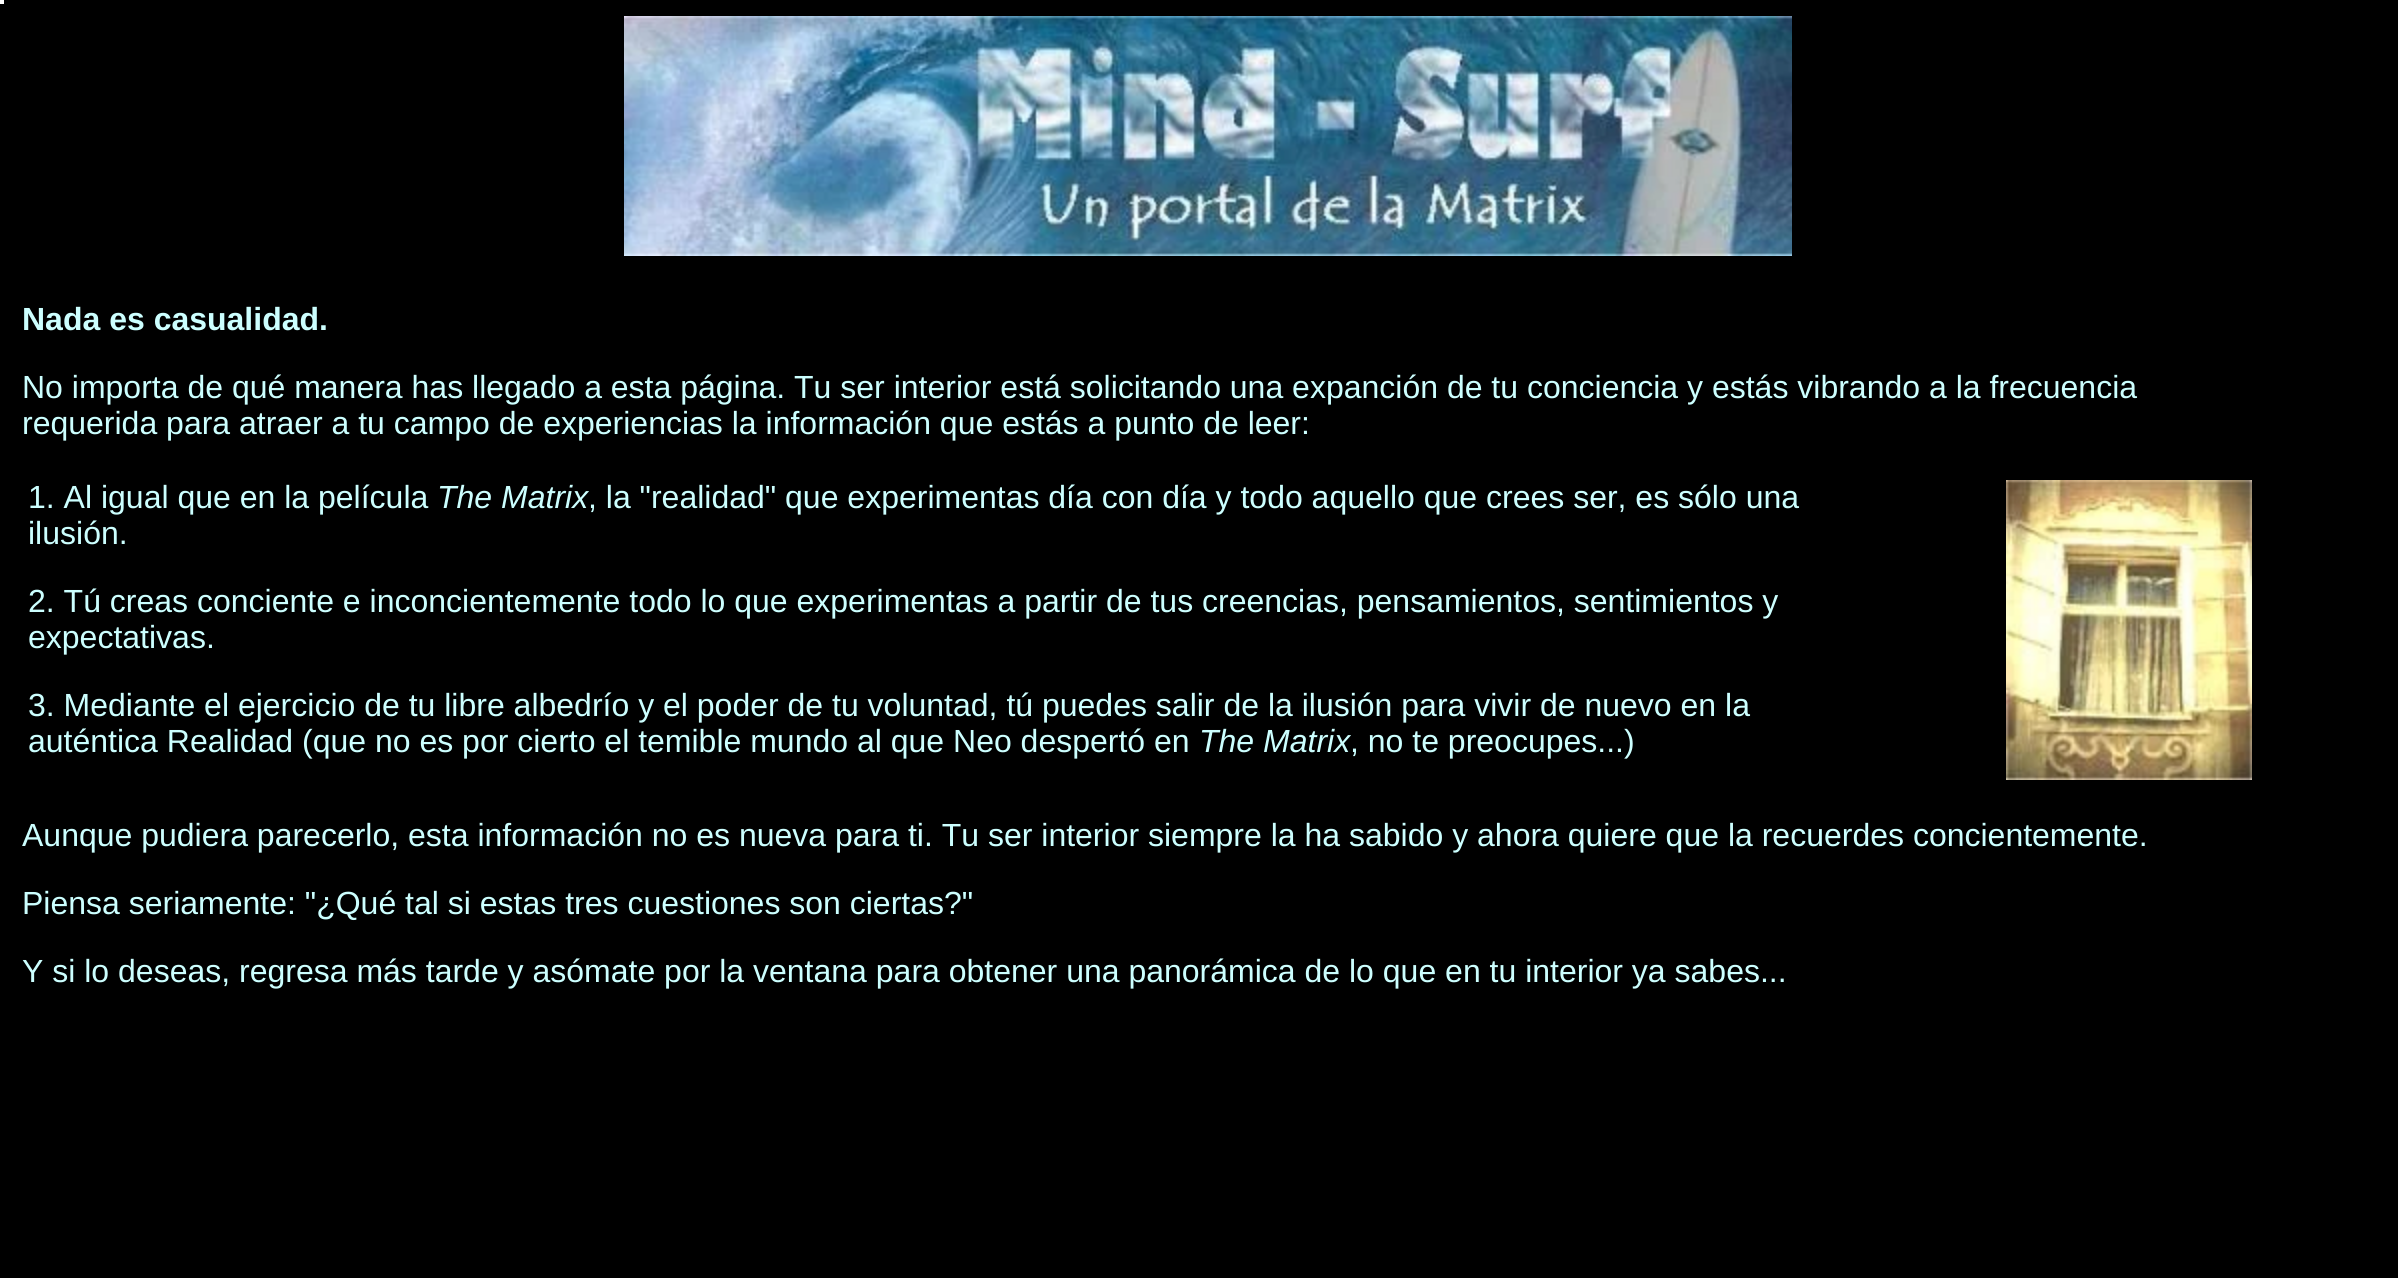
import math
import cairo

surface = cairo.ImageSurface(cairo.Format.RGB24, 2398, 1278)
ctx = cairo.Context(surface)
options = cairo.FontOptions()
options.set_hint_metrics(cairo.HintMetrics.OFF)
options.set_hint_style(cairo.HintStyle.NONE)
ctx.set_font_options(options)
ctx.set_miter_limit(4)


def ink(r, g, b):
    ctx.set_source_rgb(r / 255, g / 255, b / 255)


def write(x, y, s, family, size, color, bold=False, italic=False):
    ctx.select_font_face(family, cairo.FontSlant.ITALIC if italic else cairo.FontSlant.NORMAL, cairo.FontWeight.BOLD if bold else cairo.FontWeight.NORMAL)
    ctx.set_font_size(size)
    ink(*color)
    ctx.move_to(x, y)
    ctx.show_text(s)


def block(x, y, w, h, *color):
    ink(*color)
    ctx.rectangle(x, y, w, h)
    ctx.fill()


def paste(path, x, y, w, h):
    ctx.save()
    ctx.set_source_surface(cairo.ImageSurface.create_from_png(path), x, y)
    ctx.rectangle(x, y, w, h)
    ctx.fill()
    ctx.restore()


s1 = dict(family="Liberation Sans", size=32, color=(204, 255, 255), bold=True)
s2 = dict(family="Liberation Sans", size=32, color=(204, 255, 255))
s3 = dict(family="Liberation Sans", size=32, color=(204, 255, 255), italic=True)

ink(0, 0, 0)
ctx.paint()
block(0, 0, 4, 4, 255, 255, 255)
paste("pic1.png", 624, 16, 1168, 240)
write(22, 330, "Nada es casualidad.", **s1)
write(22, 398, "No importa de qué manera has llegado a esta página. Tu ser interior está solicitando una expanción de tu conciencia y estás vibrando a la frecuencia", **s2)
write(22, 434, "requerida para atraer a tu campo de experiencias la información que estás a punto de leer:", **s2)
write(28, 508, "1. Al igual que en la película", **s2)
write(437, 508, "The Matrix", **s3)
write(588, 508, ", la \"realidad\" que experimentas día con día y todo aquello que crees ser, es sólo una", **s2)
write(28, 544, "ilusión.", **s2)
write(28, 612, "2. Tú creas conciente e inconcientemente todo lo que experimentas a partir de tus creencias, pensamientos, sentimientos y", **s2)
write(28, 648, "expectativas.", **s2)
write(28, 716, "3. Mediante el ejercicio de tu libre albedrío y el poder de tu voluntad, tú puedes salir de la ilusión para vivir de nuevo en la", **s2)
write(28, 752, "auténtica Realidad (que no es por cierto el temible mundo al que Neo despertó en", **s2)
write(1199, 752, "The Matrix", **s3)
write(1350, 752, ", no te preocupes...)", **s2)
paste("pic2.png", 2006, 480, 246, 300)
write(22, 846, "Aunque pudiera parecerlo, esta información no es nueva para ti. Tu ser interior siempre la ha sabido y ahora quiere que la recuerdes concientemente.", **s2)
write(22, 914, "Piensa seriamente: \"¿Qué tal si estas tres cuestiones son ciertas?\"", **s2)
write(22, 982, "Y si lo deseas, regresa más tarde y asómate por la ventana para obtener una panorámica de lo que en tu interior ya sabes...", **s2)
surface.write_to_png("screenshot.png")
